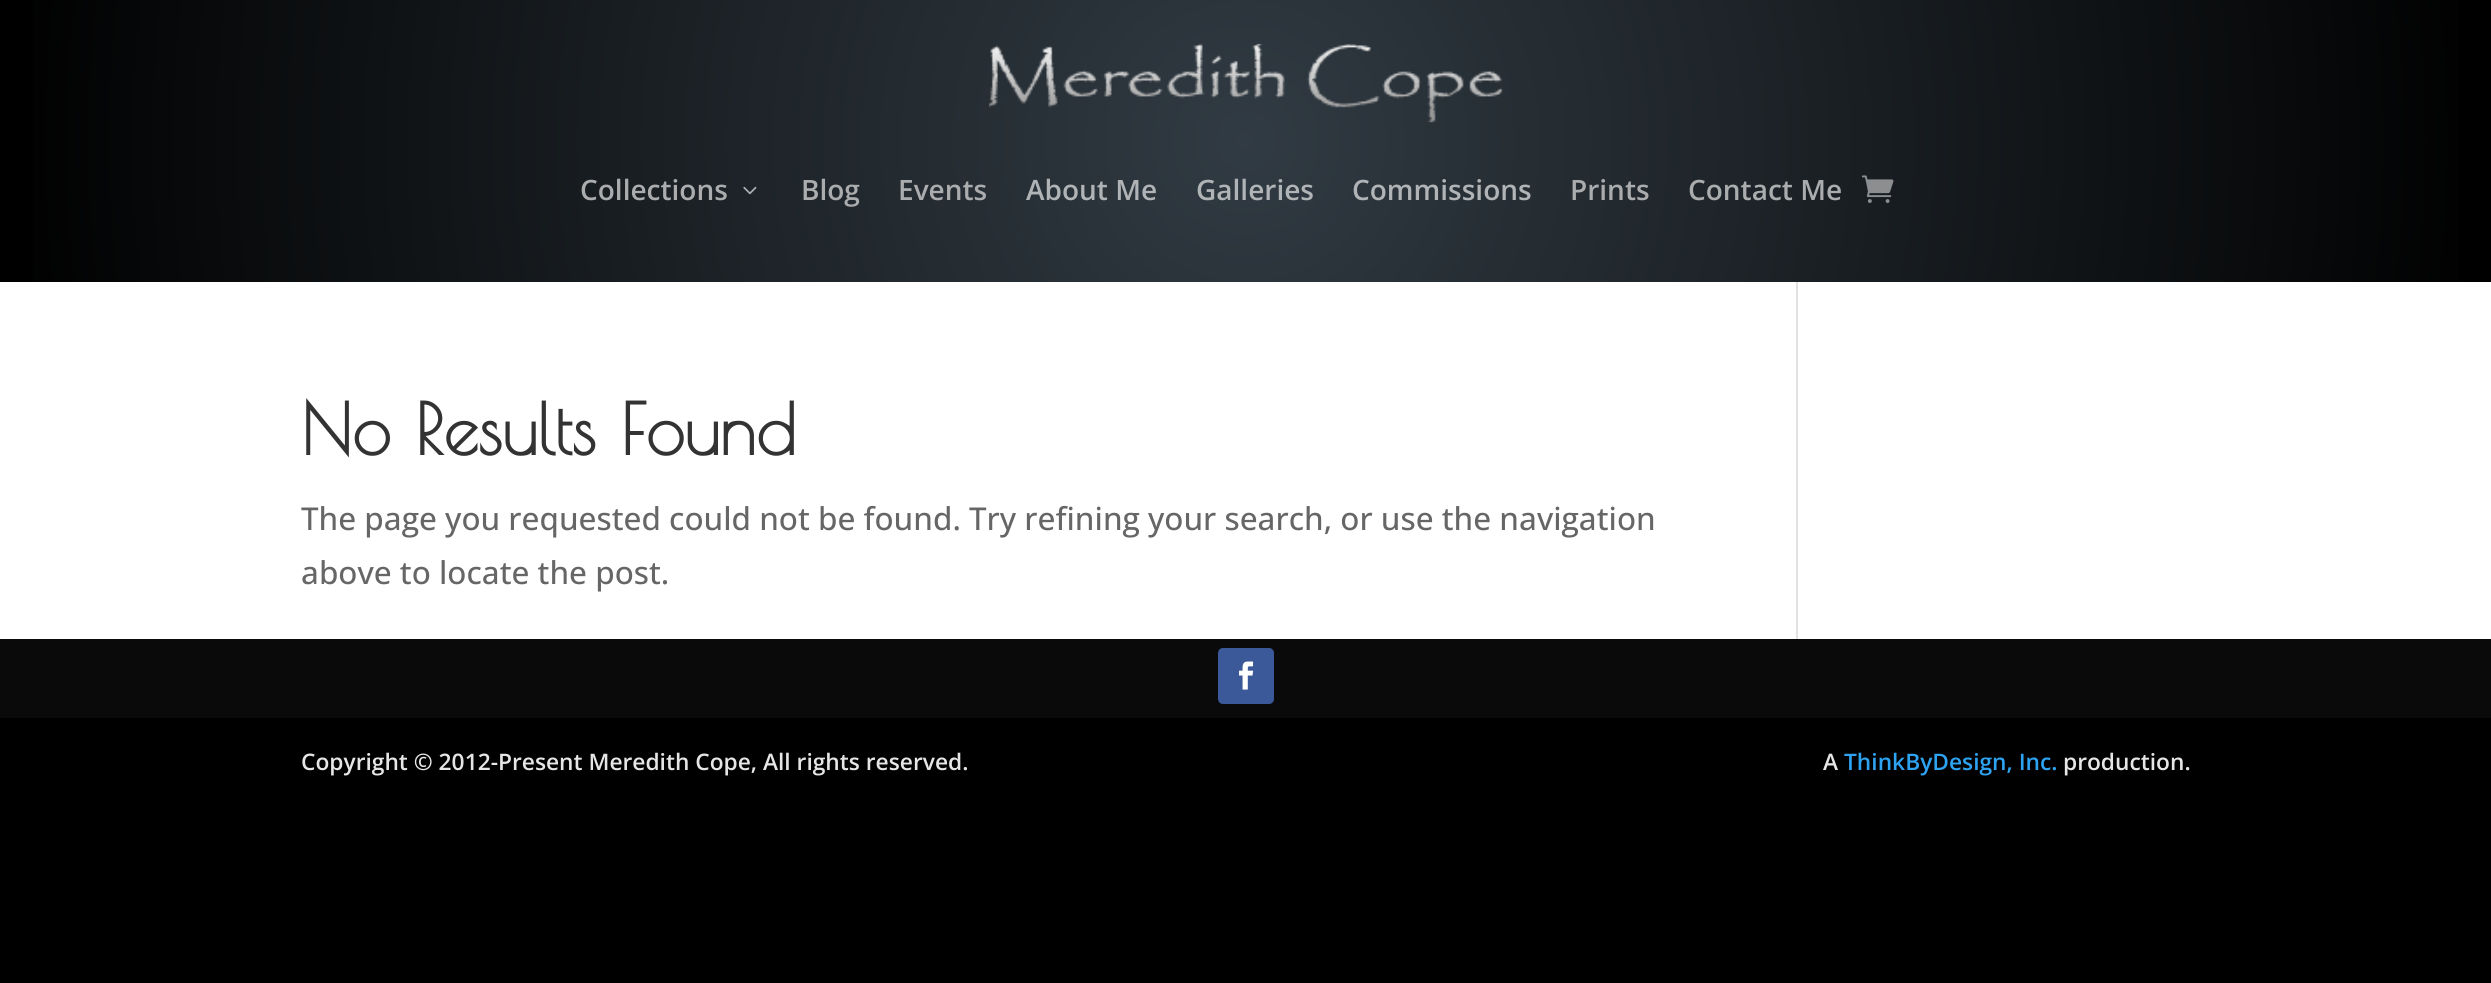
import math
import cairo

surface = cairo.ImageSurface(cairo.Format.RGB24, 2491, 983)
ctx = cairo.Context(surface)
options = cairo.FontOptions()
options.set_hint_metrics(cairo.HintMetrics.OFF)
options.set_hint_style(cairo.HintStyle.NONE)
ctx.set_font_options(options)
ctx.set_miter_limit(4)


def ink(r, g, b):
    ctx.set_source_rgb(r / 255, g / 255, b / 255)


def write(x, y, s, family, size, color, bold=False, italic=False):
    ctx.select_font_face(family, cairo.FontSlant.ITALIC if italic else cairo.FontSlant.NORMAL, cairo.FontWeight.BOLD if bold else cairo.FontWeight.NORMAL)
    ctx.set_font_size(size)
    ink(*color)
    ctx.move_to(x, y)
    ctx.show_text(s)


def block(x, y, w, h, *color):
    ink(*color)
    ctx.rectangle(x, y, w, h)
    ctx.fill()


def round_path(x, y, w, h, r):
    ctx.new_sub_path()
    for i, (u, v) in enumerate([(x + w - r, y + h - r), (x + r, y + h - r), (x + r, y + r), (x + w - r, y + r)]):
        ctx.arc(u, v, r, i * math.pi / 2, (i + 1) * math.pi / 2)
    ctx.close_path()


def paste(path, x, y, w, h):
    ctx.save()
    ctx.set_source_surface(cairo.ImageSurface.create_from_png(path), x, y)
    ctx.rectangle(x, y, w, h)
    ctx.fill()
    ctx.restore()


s1 = dict(family="Open Sans SemiBold", size=28, color=(170, 172, 174))
s2 = dict(family="Open Sans SemiBold", size=28, color=(176, 180, 182))
s3 = dict(family="Poiret One", size=70, color=(51, 51, 51), bold=True)
s4 = dict(family="Open Sans Medium", size=31.5, color=(102, 102, 102))
s5 = dict(family="Open Sans SemiBold", size=22.75, color=(230, 230, 230))
s6 = dict(family="Open Sans SemiBold", size=22.75, color=(46, 163, 242))

ink(0, 0, 0)
ctx.paint()
gradient = cairo.RadialGradient(1246, 141, 0, 1246, 141, 1254)
gradient.add_color_stop_rgba(0, 0.192, 0.231, 0.263, 1)
gradient.add_color_stop_rgba(1, 0, 0, 0, 1)
ctx.set_source(gradient)
ctx.rectangle(33, 0, 2426, 282)
ctx.fill()
paste("pic1.png", 989, 43, 514, 80)
write(580, 200, "Collections", **s1)
paste("pic2.png", 743, 186, 14, 9)
write(801, 200, "Blog", **s1)
write(898, 200, "Events", **s1)
write(1026, 200, "About Me", **s2)
write(1196, 200, "Galleries", **s2)
write(1352, 200, "Commissions", **s2)
write(1570, 200, "Prints", **s1)
write(1688, 200, "Contact Me", **s1)
paste("pic3.png", 1862, 175, 32, 28)
block(0, 282, 2491, 357, 255, 255, 255)
write(301, 455, "No Results Found", **s3)
write(301, 530, "The page you requested could not be found. Try refining your search, or use the navigation", **s4)
write(301, 584, "above to locate the post.", **s4)
block(1796, 282, 2, 357, 226, 226, 226)
block(0, 639, 2491, 79, 10, 10, 10)
ink(59, 89, 152)
round_path(1218, 648, 56, 56, 5)
ctx.fill()
paste("pic4.png", 1239, 661, 15, 29)
write(301, 770, "Copyright © 2012-Present Meredith Cope, All rights reserved.", **s5)
write(1823, 770, "A", **s5)
write(1844, 770, "ThinkByDesign, Inc.", **s6)
write(2063, 770, "production.", **s5)
surface.write_to_png("screenshot.png")
